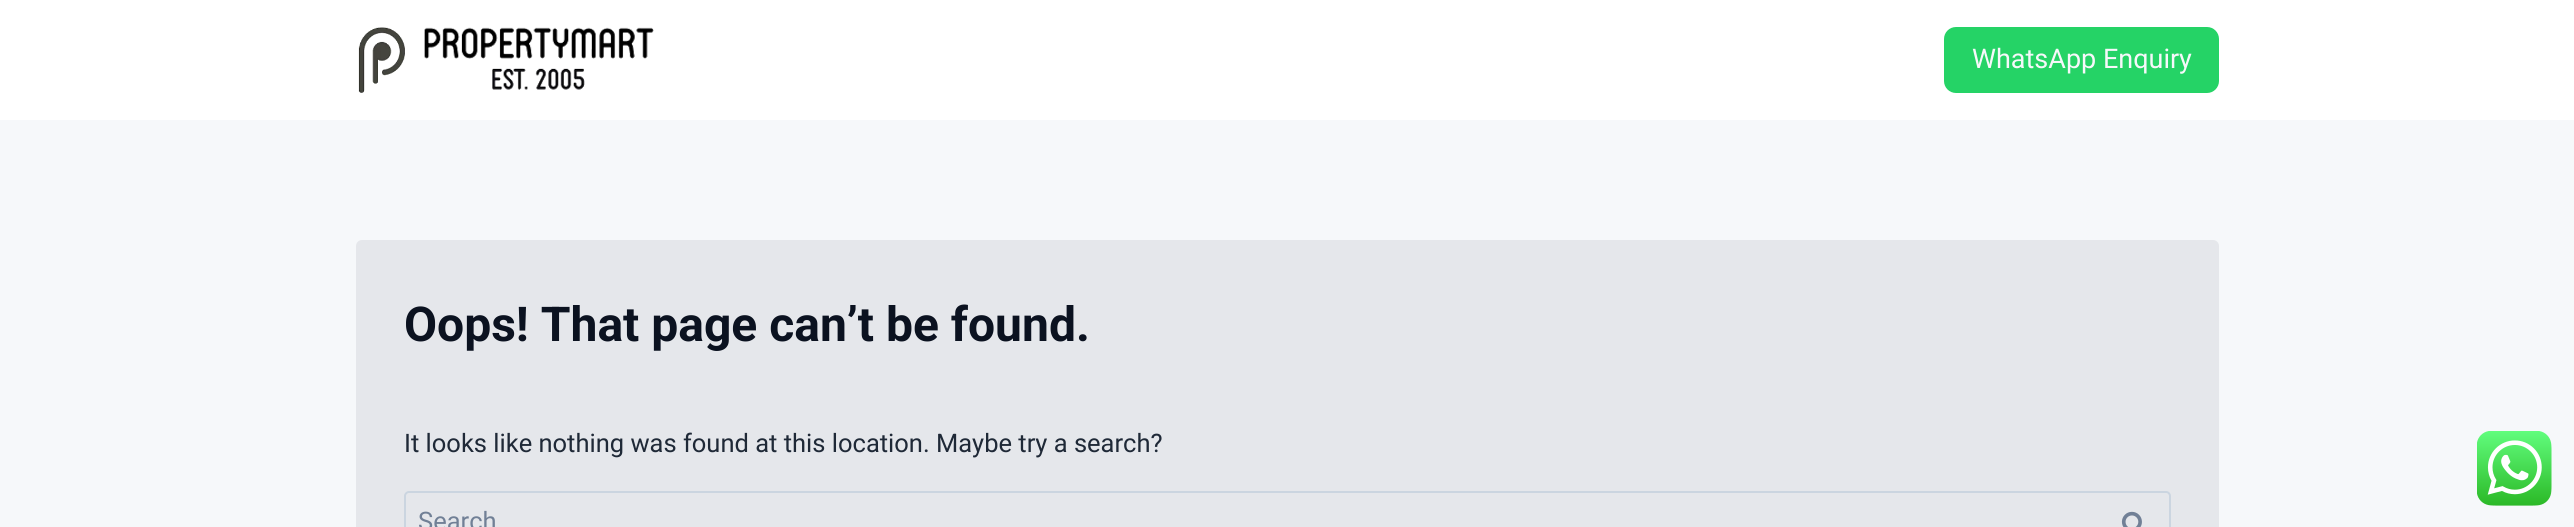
import math
import cairo

surface = cairo.ImageSurface(cairo.Format.RGB24, 2574, 527)
ctx = cairo.Context(surface)
options = cairo.FontOptions()
options.set_hint_metrics(cairo.HintMetrics.OFF)
options.set_hint_style(cairo.HintStyle.NONE)
ctx.set_font_options(options)
ctx.set_miter_limit(4)


def ink(r, g, b):
    ctx.set_source_rgb(r / 255, g / 255, b / 255)


def write(x, y, s, family, size, color, bold=False, italic=False):
    ctx.select_font_face(family, cairo.FontSlant.ITALIC if italic else cairo.FontSlant.NORMAL, cairo.FontWeight.BOLD if bold else cairo.FontWeight.NORMAL)
    ctx.set_font_size(size)
    ink(*color)
    ctx.move_to(x, y)
    ctx.show_text(s)


def block(x, y, w, h, *color):
    ink(*color)
    ctx.rectangle(x, y, w, h)
    ctx.fill()


def round_path(x, y, w, h, r):
    ctx.new_sub_path()
    for i, (u, v) in enumerate([(x + w - r, y + h - r), (x + r, y + h - r), (x + r, y + r), (x + w - r, y + r)]):
        ctx.arc(u, v, r, i * math.pi / 2, (i + 1) * math.pi / 2)
    ctx.close_path()


def paste(path, x, y, w, h):
    ctx.save()
    ctx.set_source_surface(cairo.ImageSurface.create_from_png(path), x, y)
    ctx.rectangle(x, y, w, h)
    ctx.fill()
    ctx.restore()


s1 = dict(family="Roboto", size=27, color=(246, 248, 250))
s2 = dict(family="Roboto", size=48, color=(11, 18, 32), bold=True)
s3 = dict(family="Roboto", size=25.5, color=(31, 41, 55))
s4 = dict(family="Roboto", size=25.5, color=(113, 128, 150))

ink(246, 248, 250)
ctx.paint()
block(0, 0, 2574, 120, 255, 255, 255)
paste("pic1.png", 358, 27, 296, 66)
ink(37, 211, 102)
round_path(1944, 27, 275, 66, 12)
ctx.fill()
write(1972, 68, "WhatsApp Enquiry", **s1)
ink(229, 231, 235)
round_path(356, 240, 1863, 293, 6)
ctx.fill()
write(404, 341, "Oops! That page can’t be found.", **s2)
write(404, 452, "It looks like nothing was found at this location. Maybe try a search?", **s3)
round_path(405, 492, 1765, 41, 4)
ink(203, 213, 224)
ctx.stroke()
write(418, 530, "Search", **s4)
paste("pic2.png", 2121, 511, 21, 16)
paste("pic3.png", 2477, 431, 75, 75)
surface.write_to_png("screenshot.png")
